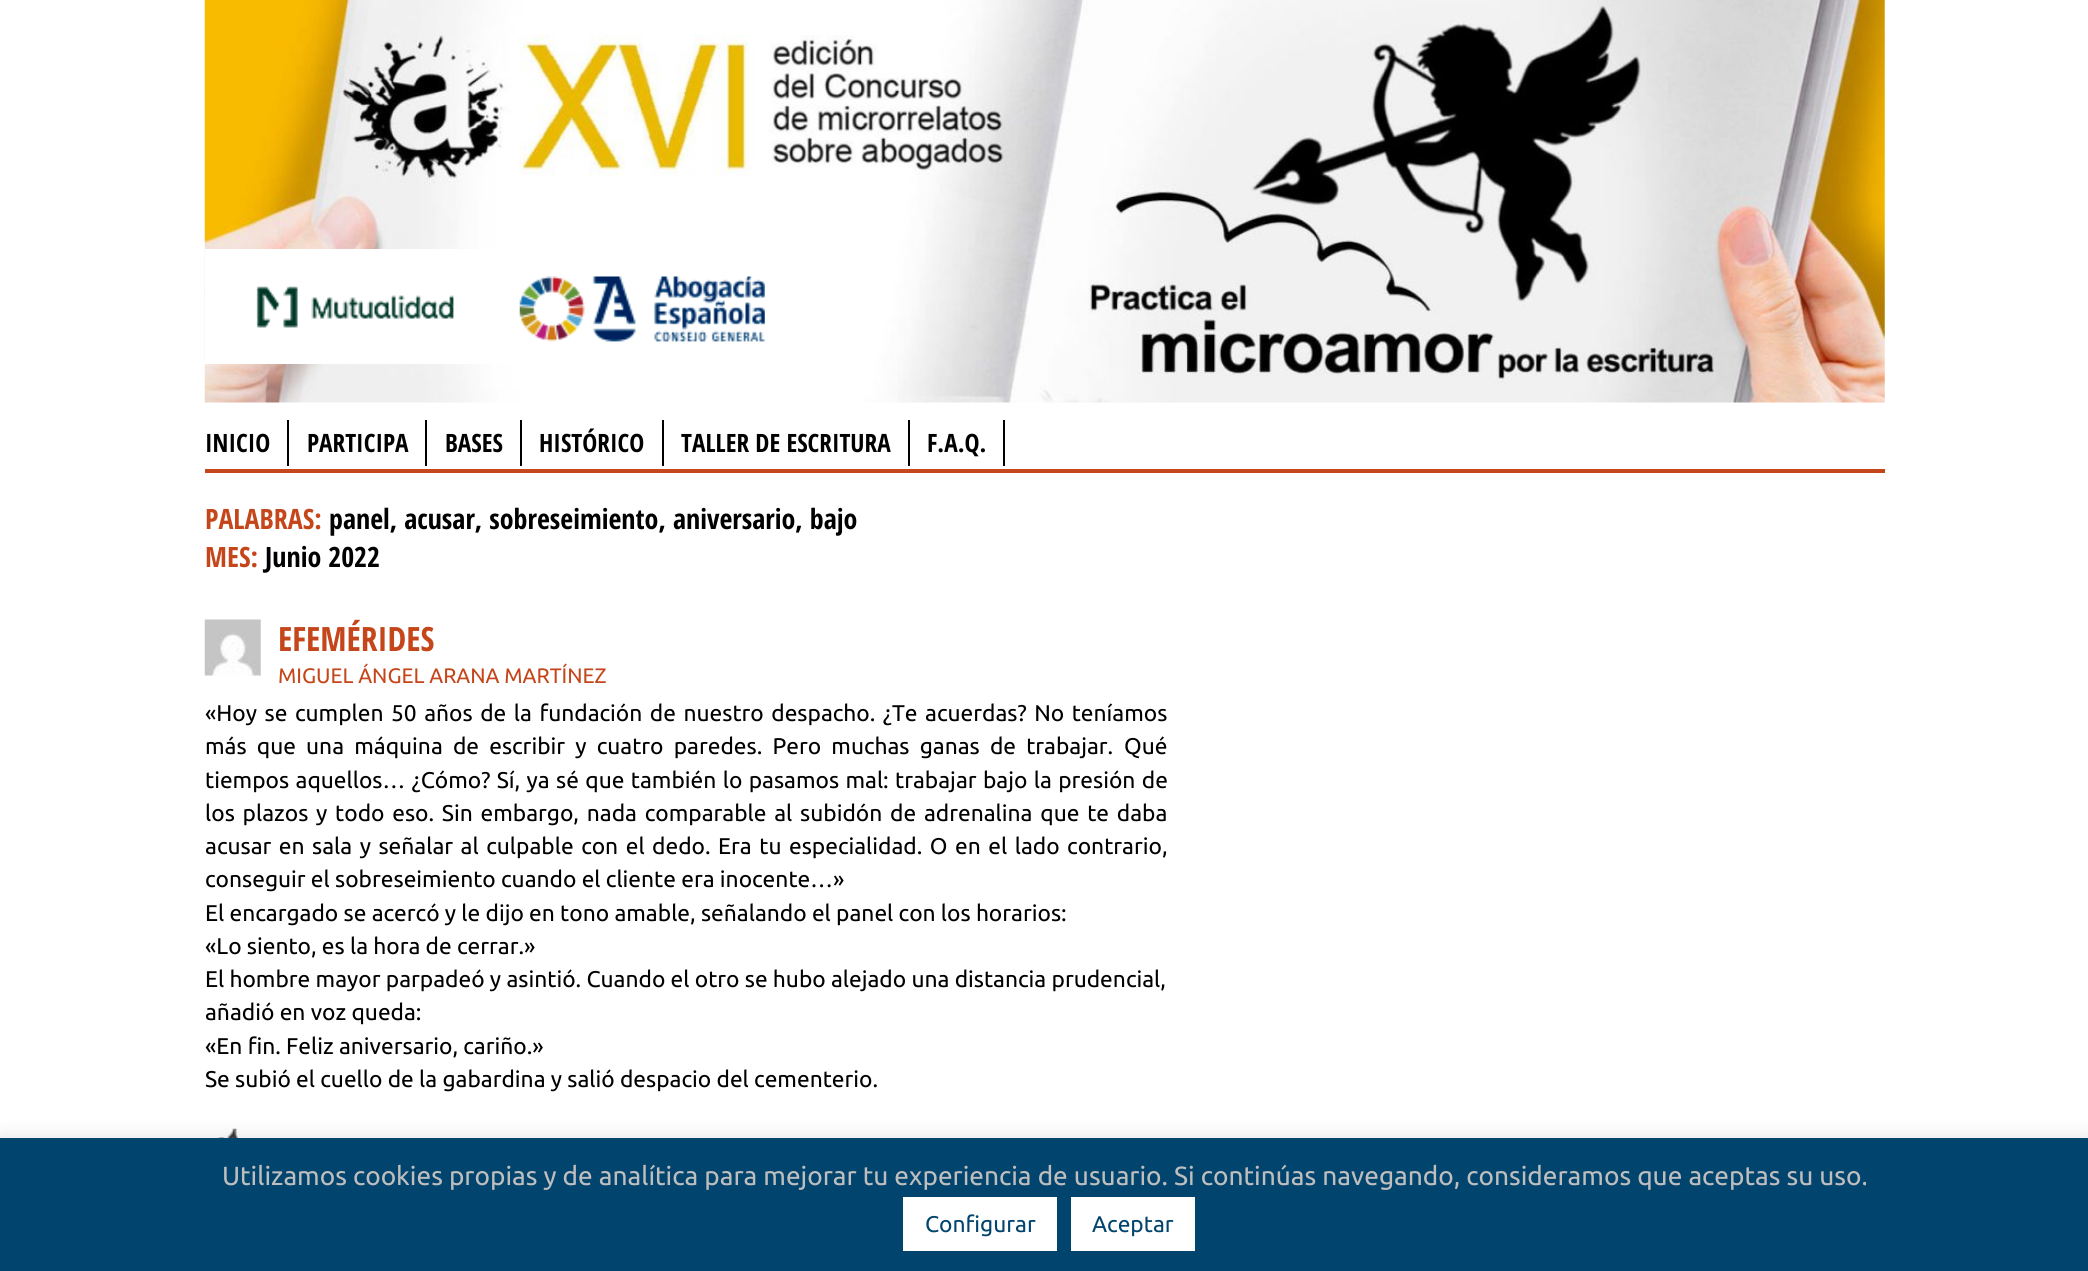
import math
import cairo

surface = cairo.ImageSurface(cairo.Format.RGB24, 2088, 1271)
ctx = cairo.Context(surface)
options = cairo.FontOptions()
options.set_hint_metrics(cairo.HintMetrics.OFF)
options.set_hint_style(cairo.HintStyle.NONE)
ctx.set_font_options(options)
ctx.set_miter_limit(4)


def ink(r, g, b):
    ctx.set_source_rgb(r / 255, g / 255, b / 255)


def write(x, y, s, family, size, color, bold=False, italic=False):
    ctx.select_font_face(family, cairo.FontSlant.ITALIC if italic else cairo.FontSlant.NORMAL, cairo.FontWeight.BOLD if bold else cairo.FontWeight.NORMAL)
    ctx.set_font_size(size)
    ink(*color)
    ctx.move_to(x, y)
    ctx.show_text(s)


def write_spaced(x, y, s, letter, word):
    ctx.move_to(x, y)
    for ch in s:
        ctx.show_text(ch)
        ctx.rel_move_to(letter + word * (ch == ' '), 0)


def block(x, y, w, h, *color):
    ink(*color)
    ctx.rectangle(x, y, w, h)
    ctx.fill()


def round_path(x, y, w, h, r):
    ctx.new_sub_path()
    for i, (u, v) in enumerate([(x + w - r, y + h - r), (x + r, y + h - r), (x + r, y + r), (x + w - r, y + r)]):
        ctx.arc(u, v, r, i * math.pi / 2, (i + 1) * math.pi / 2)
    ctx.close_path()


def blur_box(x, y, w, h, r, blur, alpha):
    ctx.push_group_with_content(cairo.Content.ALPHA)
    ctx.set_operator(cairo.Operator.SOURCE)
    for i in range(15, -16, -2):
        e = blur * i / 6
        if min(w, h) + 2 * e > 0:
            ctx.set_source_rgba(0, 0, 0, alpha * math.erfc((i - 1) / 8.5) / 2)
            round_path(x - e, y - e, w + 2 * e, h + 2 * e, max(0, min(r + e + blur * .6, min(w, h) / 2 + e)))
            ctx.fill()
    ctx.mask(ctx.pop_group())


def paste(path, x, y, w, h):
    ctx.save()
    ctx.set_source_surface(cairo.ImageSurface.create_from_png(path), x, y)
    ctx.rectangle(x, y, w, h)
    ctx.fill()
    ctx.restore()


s1 = dict(family="Open Sans Condensed", size=25.25, color=(0, 0, 0), bold=True)
s2 = dict(family="Open Sans Condensed", size=28, color=(196, 70, 26), bold=True)
s3 = dict(family="Open Sans Condensed", size=28, color=(0, 0, 0), bold=True)
s4 = dict(family="Open Sans Condensed", size=33.5, color=(196, 70, 26), bold=True)
s5 = dict(family="Ubuntu", size=21, color=(196, 70, 26))
s6 = dict(family="Ubuntu", size=22.75, color=(0, 0, 0))
s7 = dict(family="Ubuntu", size=26.25, color=(190, 190, 190))
s8 = dict(family="Ubuntu", size=22.75, color=(1, 68, 110))

ink(255, 255, 255)
ctx.paint()
paste("pic1.png", 204, 0, 1681, 403)
ink(255, 255, 255)
ctx.new_path()
ctx.move_to(205, 249)
ctx.line_to(772, 249)
ctx.curve_to(787.5, 249, 800, 261.5, 800, 277)
ctx.line_to(800, 336)
ctx.curve_to(800, 351.5, 787.5, 364, 772, 364)
ctx.line_to(205, 364)
ctx.close_path()
ctx.fill()
paste("pic2.png", 256, 286, 198, 42)
paste("pic3.png", 519, 276, 246, 66)
block(205, 469, 1680, 4, 196, 70, 26)
block(287, 420, 2, 46, 0, 0, 0)
write(205, 452, "INICIO", **s1)
block(425, 420, 2, 46, 0, 0, 0)
write(307, 452, "PARTICIPA", **s1)
block(520, 420, 2, 46, 0, 0, 0)
write(445, 452, "BASES", **s1)
block(662, 420, 2, 46, 0, 0, 0)
write(539, 452, "HISTÓRICO", **s1)
block(908, 420, 2, 46, 0, 0, 0)
write(681, 452, "TALLER DE ESCRITURA", **s1)
block(1003, 420, 2, 46, 0, 0, 0)
write(927, 452, "F.A.Q.", **s1)
write(205, 529, "PALABRAS:", **s2)
write(329, 529, "panel, acusar, sobreseimiento, aniversario, bajo", **s3)
write(205, 567, "MES:", **s2)
write(265, 567, "Junio 2022", **s3)
paste("pic4.png", 204, 619, 57, 57)
write(278, 651, "EFEMÉRIDES", **s4)
write(278, 683, "MIGUEL ÁNGEL ARANA MARTÍNEZ", **s5)
ctx.set_font_size(22.75)
ink(0, 0, 0)
write_spaced(205, 721, "«Hoy se cumplen 50 años de la fundación de nuestro despacho. ¿Te acuerdas? No teníamos", 0, 2.25)
write_spaced(205, 754, "más que una máquina de escribir y cuatro paredes. Pero muchas ganas de trabajar.", 0, 4.9)
write(1124, 754, "Qué", **s6)
write_spaced(205, 788, "tiempos aquellos… ¿Cómo? Sí, ya sé que también lo pasamos mal: trabajar bajo la presión de", 0, 1.1)
write_spaced(205, 821, "los plazos y todo eso. Sin embargo, nada comparable al subidón de adrenalina que te daba", 0, 2.5)
write_spaced(205, 854, "acusar en sala y señalar al culpable con el dedo. Era tu especialidad. O en el lado contrario,", 0, 2.25)
write(205, 887, "conseguir el sobreseimiento cuando el cliente era inocente…»", **s6)
write(205, 921, "El encargado se acercó y le dijo en tono amable, señalando el panel con los horarios:", **s6)
write(205, 954, "«Lo siento, es la hora de cerrar.»", **s6)
write(205, 987, "El hombre mayor parpadeó y asintió. Cuando el otro se hubo alejado una distancia prudencial,", **s6)
write(205, 1020, "añadió en voz queda:", **s6)
write(205, 1054, "«En fin. Feliz aniversario, cariño.»", **s6)
write(205, 1087, "Se subió el cuello de la gabardina y salió despacio del cementerio.", **s6)
paste("pic5.png", 212, 1128, 26, 10)
ink(172, 171, 171)
blur_box(0, 1136, 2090, 135, 0, 9, 0.3)
block(0, 1138, 2088, 133, 1, 68, 110)
write(222, 1185, "Utilizamos cookies propias y de analítica para mejorar tu experiencia de usuario. Si continúas navegando, consideramos que aceptas su uso.", **s7)
block(903, 1197, 154, 54, 255, 255, 255)
write(925, 1232, "Configurar", **s8)
block(1071, 1197, 124, 54, 255, 255, 255)
write(1092, 1232, "Aceptar", **s8)
surface.write_to_png("screenshot.png")
